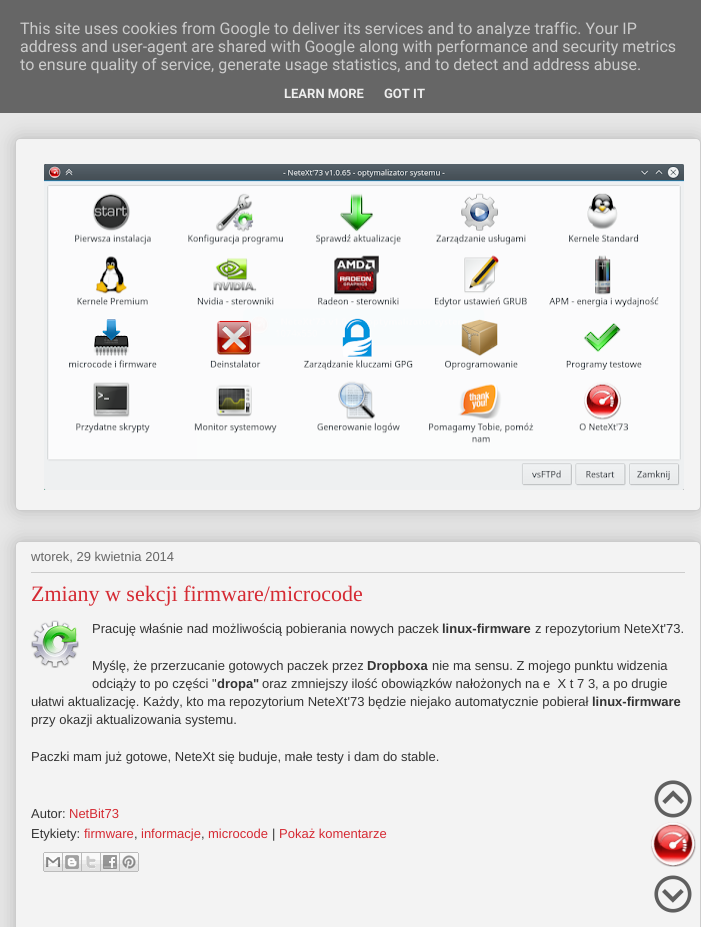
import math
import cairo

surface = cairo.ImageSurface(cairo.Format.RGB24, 701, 927)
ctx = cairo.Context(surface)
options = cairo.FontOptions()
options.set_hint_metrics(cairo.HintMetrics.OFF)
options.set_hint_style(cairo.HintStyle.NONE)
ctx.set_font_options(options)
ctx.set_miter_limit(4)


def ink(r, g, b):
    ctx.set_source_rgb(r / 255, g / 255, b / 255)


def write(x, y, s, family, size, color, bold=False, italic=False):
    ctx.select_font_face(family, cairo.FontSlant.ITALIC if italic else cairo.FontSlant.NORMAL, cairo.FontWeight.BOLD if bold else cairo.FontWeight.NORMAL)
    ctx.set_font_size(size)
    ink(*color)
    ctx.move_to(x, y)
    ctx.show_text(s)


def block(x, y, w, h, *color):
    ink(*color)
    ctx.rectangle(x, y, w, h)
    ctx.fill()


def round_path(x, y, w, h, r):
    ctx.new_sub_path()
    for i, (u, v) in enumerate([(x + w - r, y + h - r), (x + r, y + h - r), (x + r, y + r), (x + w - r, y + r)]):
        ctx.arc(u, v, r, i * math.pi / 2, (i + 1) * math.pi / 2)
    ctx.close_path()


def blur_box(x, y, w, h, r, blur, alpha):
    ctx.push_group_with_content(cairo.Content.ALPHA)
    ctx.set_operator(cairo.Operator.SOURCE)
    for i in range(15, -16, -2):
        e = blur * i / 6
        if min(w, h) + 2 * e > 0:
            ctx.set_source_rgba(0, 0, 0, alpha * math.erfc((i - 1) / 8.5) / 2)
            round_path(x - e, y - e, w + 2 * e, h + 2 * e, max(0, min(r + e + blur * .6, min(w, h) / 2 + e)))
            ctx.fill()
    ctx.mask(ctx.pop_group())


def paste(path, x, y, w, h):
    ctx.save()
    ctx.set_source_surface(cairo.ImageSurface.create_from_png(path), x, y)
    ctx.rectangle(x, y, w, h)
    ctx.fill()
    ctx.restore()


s1 = dict(family="Roboto", size=16, color=(204, 204, 204))
s2 = dict(family="Roboto", size=13, color=(238, 238, 238), bold=True)
s3 = dict(family="Liberation Sans", size=13, color=(102, 102, 102))
s4 = dict(family="Liberation Serif", size=22, color=(213, 42, 51))
s5 = dict(family="Liberation Sans", size=13, color=(51, 51, 51))
s6 = dict(family="Liberation Sans", size=13, color=(51, 51, 51), bold=True)
s7 = dict(family="Liberation Sans", size=13, color=(213, 42, 51))

ink(231, 231, 231)
ctx.paint()
ink(0, 0, 0)
blur_box(15, 138, 686, 373, 5, 10, 0.2)
block(0, 0, 701, 113, 102, 102, 102)
write(20, 34, "This site uses cookies from Google to deliver its services and to analyze traffic. Your IP", **s1)
write(20, 52, "address and user-agent are shared with Google along with performance and security metrics", **s1)
write(20, 70, "to ensure quality of service, generate usage statistics, and to detect and address abuse.", **s1)
write(284, 98, "LEARN MORE", **s2)
write(384, 98, "GOT IT", **s2)
ink(243, 243, 243)
round_path(15.5, 138.5, 685, 372, 4.5)
ctx.fill_preserve()
ink(204, 204, 204)
ctx.set_line_width(1)
ctx.stroke()
paste("pic1.png", 44, 164, 640, 326)
ink(0, 0, 0)
blur_box(15, 541, 686, 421, 5, 10, 0.2)
ink(243, 243, 243)
round_path(15.5, 541.5, 685, 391, 4.5)
ctx.fill_preserve()
ink(204, 204, 204)
ctx.stroke()
write(31, 561, "wtorek, 29 kwietnia 2014", **s3)
block(31, 572, 654, 1, 204, 204, 204)
write(31, 601, "Zmiany w sekcji firmware/microcode", **s4)
paste("pic2.png", 31, 620, 48, 48)
write(92, 633, "Pracuję właśnie nad możliwością pobierania nowych paczek", **s5)
write(442, 633, "linux-firmware", **s6)
write(535, 633, "z repozytorium NeteXt'73.", **s5)
write(92, 670, "Myślę, że przerzucanie gotowych paczek przez", **s5)
write(367, 670, "Dropboxa", **s6)
write(432, 670, "nie ma sensu. Z mojego punktu widzenia", **s5)
write(92, 688, "odciąży to po części \"", **s5)
write(217, 688, "dropa\"", **s6)
write(262, 688, "oraz zmniejszy ilość obowiązków nałożonych na e  X t 7 3, a po drugie", **s5)
write(31, 706, "ułatwi aktualizację. Każdy, kto ma repozytorium NeteXt'73 będzie niejako automatycznie pobierał", **s5)
write(592, 706, "linux-firmware", **s6)
write(31, 724, "przy okazji aktualizowania systemu.", **s5)
write(31, 761, "Paczki mam już gotowe, NeteXt się buduje, małe testy i dam do stable.", **s5)
write(31, 818, "Autor:", **s5)
write(69, 818, "NetBit73", **s7)
write(31, 838, "Etykiety:", **s5)
write(84, 838, "firmware", **s7)
write(134, 838, ",", **s5)
write(141, 838, "informacje", **s7)
write(201, 838, ",", **s5)
write(208, 838, "microcode", **s7)
write(272, 838, "|", **s5)
write(279, 838, "Pokaż komentarze", **s7)
paste("pic3.png", 43, 852, 20, 20)
paste("pic4.png", 63, 852, 19, 20)
paste("pic5.png", 82, 852, 19, 20)
paste("pic6.png", 101, 852, 19, 20)
paste("pic7.png", 120, 852, 19, 20)
paste("pic8.png", 654, 780, 38, 38)
paste("pic9.png", 651, 822, 45, 45)
paste("pic10.png", 654, 875, 38, 38)
surface.write_to_png("screenshot.png")
